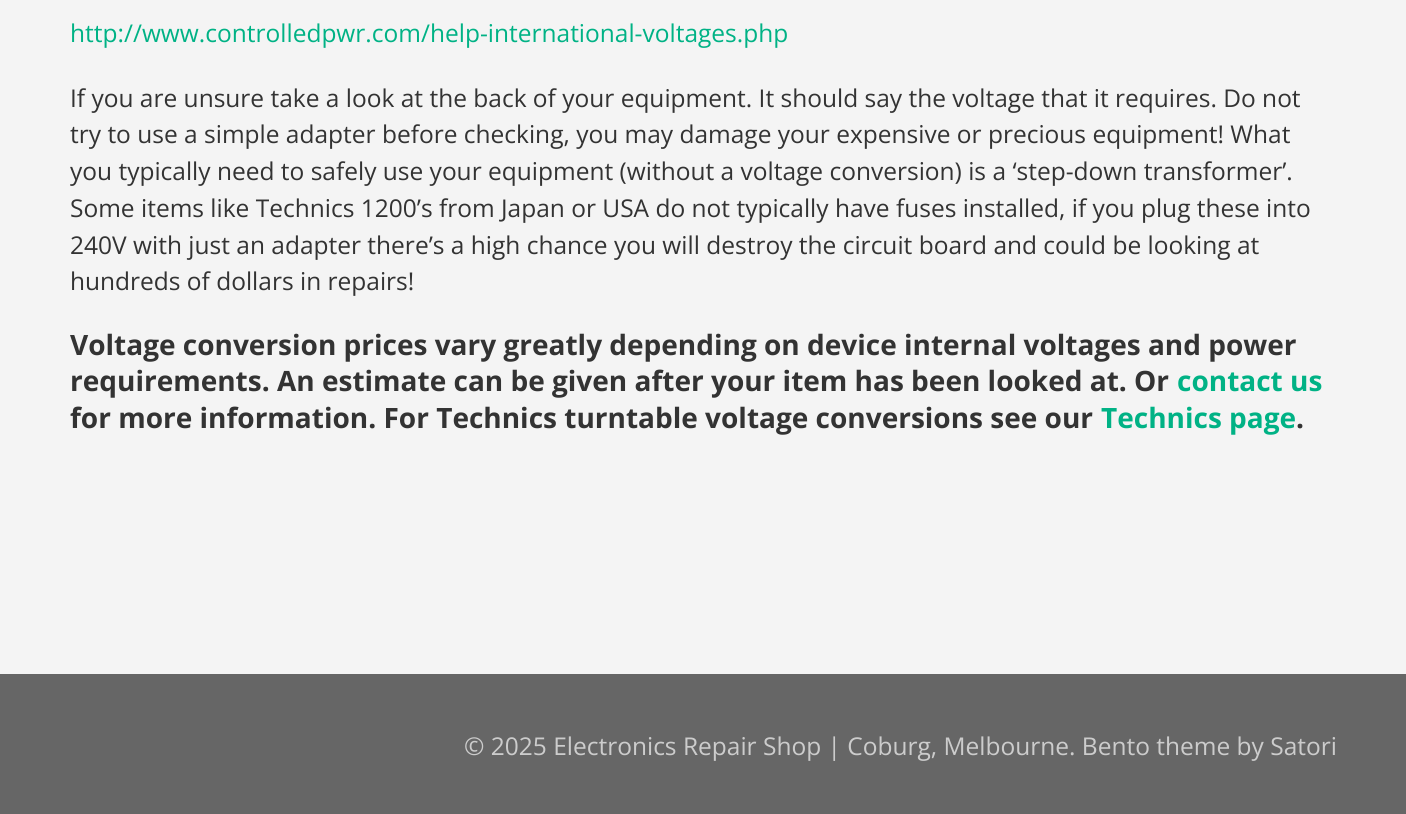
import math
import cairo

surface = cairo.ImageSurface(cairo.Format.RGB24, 1406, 814)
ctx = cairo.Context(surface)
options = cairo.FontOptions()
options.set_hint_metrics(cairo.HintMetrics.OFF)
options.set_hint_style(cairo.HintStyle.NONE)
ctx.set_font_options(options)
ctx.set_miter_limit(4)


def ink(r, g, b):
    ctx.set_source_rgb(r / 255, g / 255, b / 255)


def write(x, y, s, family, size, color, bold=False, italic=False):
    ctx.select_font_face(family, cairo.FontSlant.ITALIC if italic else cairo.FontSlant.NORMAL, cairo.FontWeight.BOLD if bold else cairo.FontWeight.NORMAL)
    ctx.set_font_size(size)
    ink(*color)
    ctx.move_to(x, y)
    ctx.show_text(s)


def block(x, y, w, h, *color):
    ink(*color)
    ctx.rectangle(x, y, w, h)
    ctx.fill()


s1 = dict(family="Open Sans", size=24.5, color=(0, 178, 133))
s2 = dict(family="Open Sans", size=24.5, color=(51, 51, 51))
s3 = dict(family="Open Sans", size=28, color=(51, 51, 51), bold=True)
s4 = dict(family="Open Sans", size=28, color=(0, 178, 133), bold=True)
s5 = dict(family="Open Sans", size=24.5, color=(204, 204, 204))

ink(244, 244, 244)
ctx.paint()
write(70, 42, "http://www.controlledpwr.com/help-international-voltages.php", **s1)
write(70, 107, "If you are unsure take a look at the back of your equipment. It should say the voltage that it requires. Do not", **s2)
write(70, 143, "try to use a simple adapter before checking, you may damage your expensive or precious equipment! What", **s2)
write(70, 180, "you typically need to safely use your equipment (without a voltage conversion) is a ‘step-down transformer’.", **s2)
write(70, 217, "Some items like Technics 1200’s from Japan or USA do not typically have fuses installed, if you plug these into", **s2)
write(70, 254, "240V with just an adapter there’s a high chance you will destroy the circuit board and could be looking at", **s2)
write(70, 290, "hundreds of dollars in repairs!", **s2)
write(70, 355, "Voltage conversion prices vary greatly depending on device internal voltages and power", **s3)
write(70, 391, "requirements. An estimate can be given after your item has been looked at. Or", **s3)
write(1177, 391, "contact us", **s4)
write(70, 428, "for more information. For Technics turntable voltage conversions see our", **s3)
write(1101, 428, "Technics page", **s4)
write(1296, 428, ".", **s3)
block(0, 674, 1406, 140, 102, 102, 102)
write(464, 755, "© 2025 Electronics Repair Shop | Coburg, Melbourne. Bento theme by Satori", **s5)
surface.write_to_png("screenshot.png")
